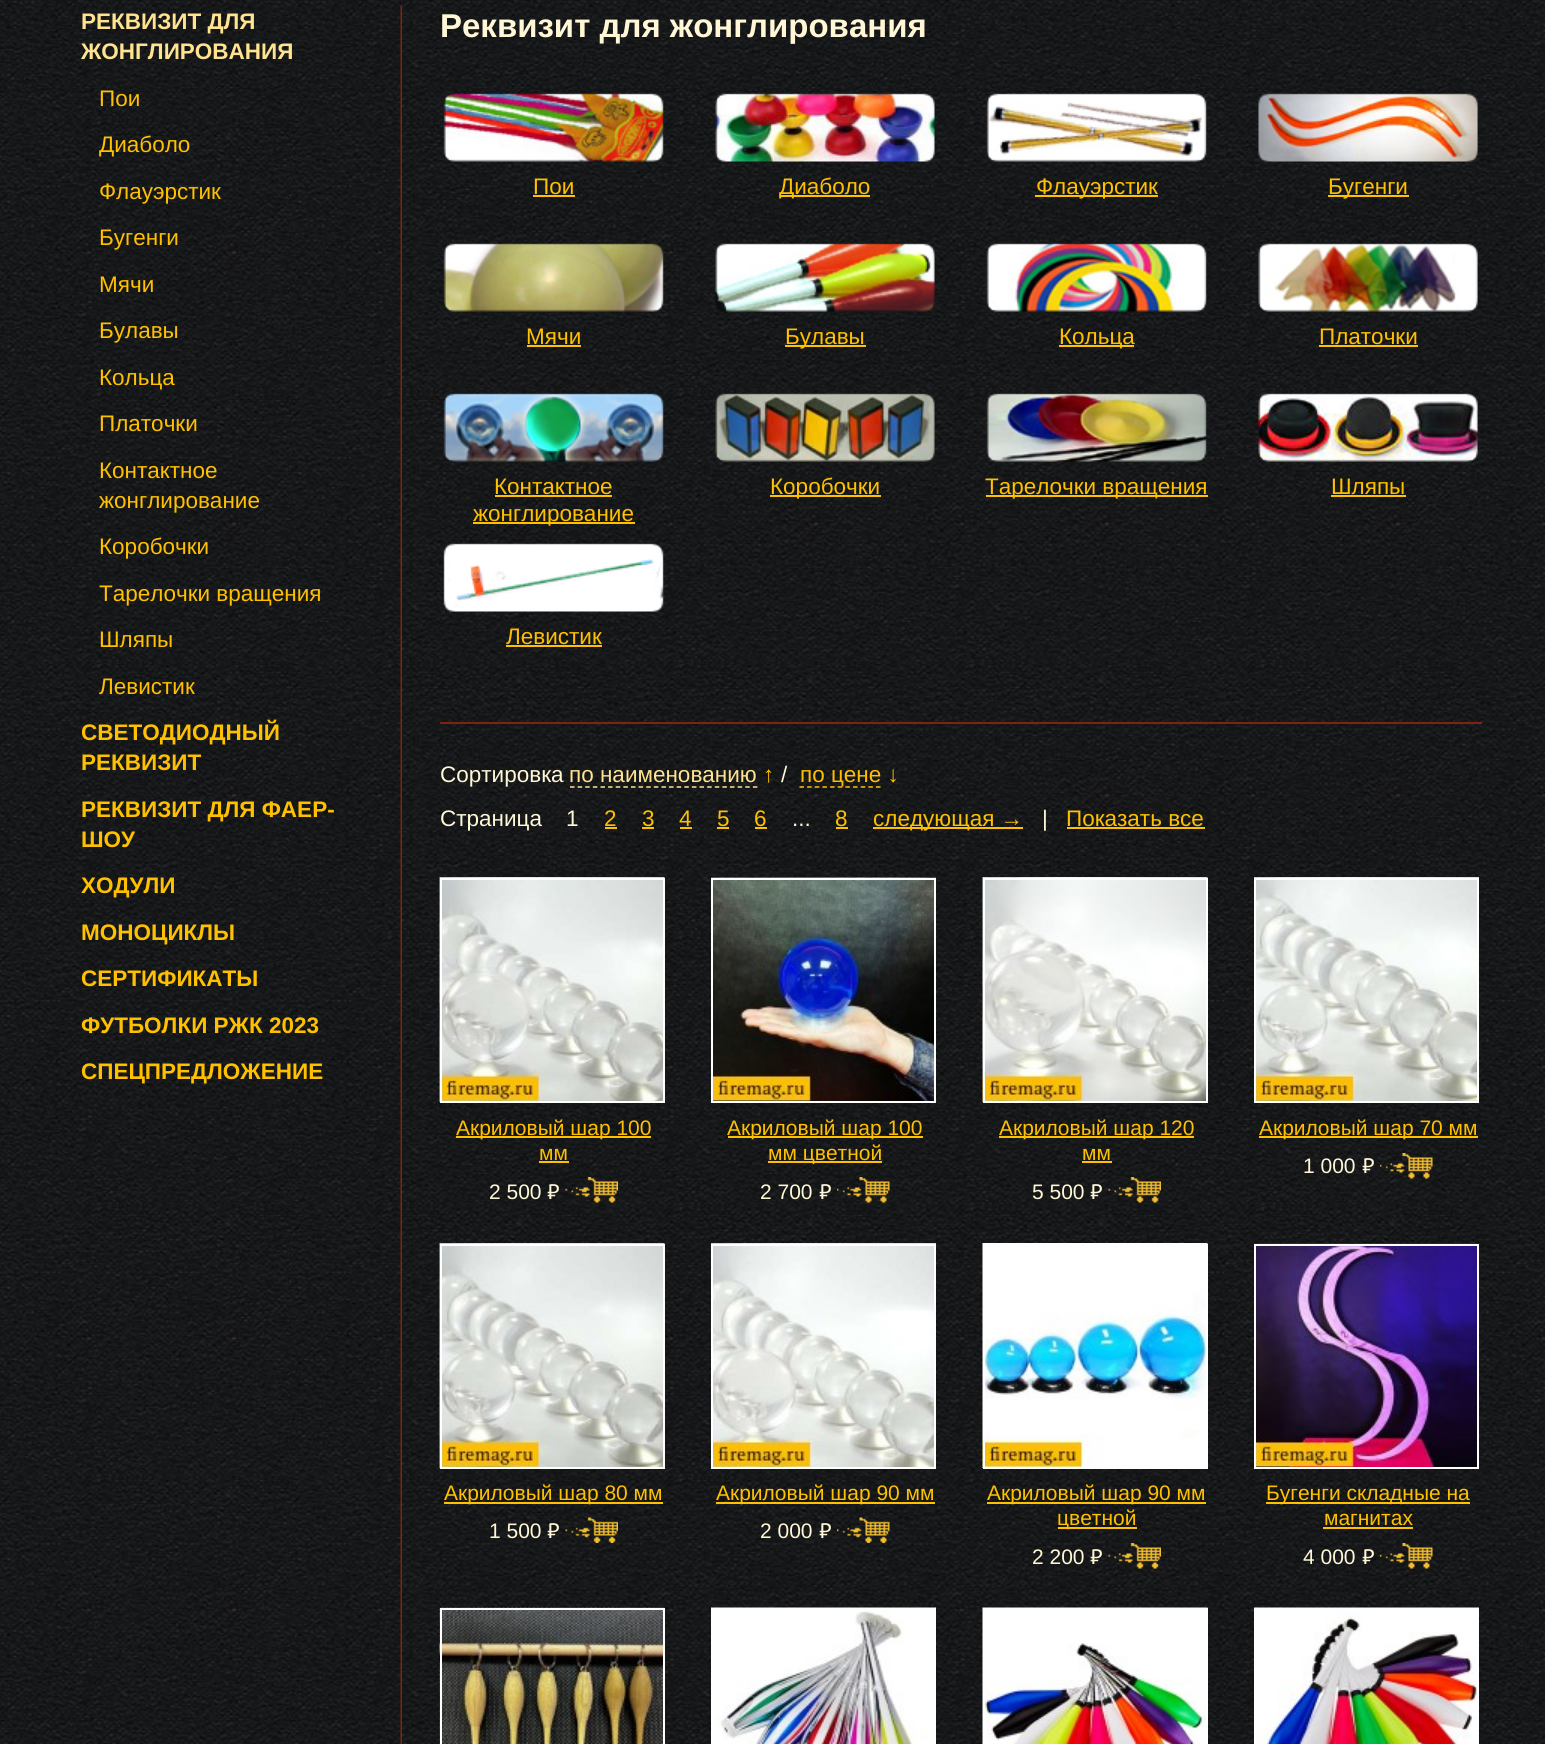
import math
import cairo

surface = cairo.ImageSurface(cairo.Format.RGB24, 1545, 1744)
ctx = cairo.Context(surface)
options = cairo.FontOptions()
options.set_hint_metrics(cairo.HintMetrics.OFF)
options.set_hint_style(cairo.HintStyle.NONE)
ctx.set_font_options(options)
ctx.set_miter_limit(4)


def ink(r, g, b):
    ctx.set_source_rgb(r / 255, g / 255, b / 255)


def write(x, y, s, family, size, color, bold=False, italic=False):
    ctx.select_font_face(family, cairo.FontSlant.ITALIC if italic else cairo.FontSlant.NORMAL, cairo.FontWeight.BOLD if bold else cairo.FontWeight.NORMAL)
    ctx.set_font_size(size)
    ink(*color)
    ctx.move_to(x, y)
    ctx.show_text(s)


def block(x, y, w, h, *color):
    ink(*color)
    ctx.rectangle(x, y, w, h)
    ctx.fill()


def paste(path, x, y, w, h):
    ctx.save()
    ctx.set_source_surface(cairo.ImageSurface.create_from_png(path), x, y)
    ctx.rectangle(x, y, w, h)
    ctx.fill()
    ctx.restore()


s1 = dict(family="Liberation Sans", size=22.5, color=(255, 227, 143), bold=True)
s2 = dict(family="Liberation Sans", size=22.5, color=(255, 192, 0))
s3 = dict(family="Liberation Sans", size=22.5, color=(255, 192, 0), bold=True)
s4 = dict(family="Liberation Sans", size=33, color=(255, 247, 214), bold=True)
s5 = dict(family="Liberation Sans", size=22.5, color=(255, 247, 214))
s6 = dict(family="Liberation Sans", size=22.5, color=(255, 227, 143))
s7 = dict(family="Liberation Sans", size=21, color=(255, 192, 0))
s8 = dict(family="Liberation Sans", size=21, color=(255, 247, 214))
s9 = dict(family="PT Sans Caption", size=21, color=(255, 247, 214))

ink(255, 255, 255)
ctx.paint()
paste("pic1.png", 0, 0, 1545, 1744)
paste("pic2.png", 400, 5, 2, 1739)
write(81, 29, "РЕКВИЗИТ ДЛЯ", **s1)
write(81, 59, "ЖОНГЛИРОВАНИЯ", **s1)
write(99, 106, "Пои", **s2)
write(99, 152, "Диаболо", **s2)
write(99, 199, "Флауэрстик", **s2)
write(99, 245, "Бугенги", **s2)
write(99, 292, "Мячи", **s2)
write(99, 338, "Булавы", **s2)
write(99, 385, "Кольца", **s2)
write(99, 431, "Платочки", **s2)
write(99, 478, "Контактное", **s2)
write(99, 508, "жонглирование", **s2)
write(99, 554, "Коробочки", **s2)
write(99, 601, "Тарелочки вращения", **s2)
write(99, 647, "Шляпы", **s2)
write(99, 694, "Левистик", **s2)
write(81, 740, "СВЕТОДИОДНЫЙ", **s3)
write(81, 770, "РЕКВИЗИТ", **s3)
write(81, 817, "РЕКВИЗИТ ДЛЯ ФАЕР-", **s3)
write(81, 847, "ШОУ", **s3)
write(81, 893, "ХОДУЛИ", **s3)
write(81, 940, "МОНОЦИКЛЫ", **s3)
write(81, 986, "СЕРТИФИКАТЫ", **s3)
write(81, 1033, "ФУТБОЛКИ РЖК 2023", **s3)
write(81, 1079, "СПЕЦПРЕДЛОЖЕНИЕ", **s3)
write(440, 37, "Реквизит для жонглирования", **s4)
paste("pic3.png", 443, 93, 221, 69)
paste("pic4.png", 715, 93, 220, 69)
paste("pic5.png", 986, 93, 221, 69)
paste("pic6.png", 1258, 93, 220, 69)
write(533, 194, "Пои", **s2)
block(533, 195, 42, 2, 255, 192, 0)
block(780, 195, 90, 2, 255, 192, 0)
write(779, 194, "Диаболо", **s2)
block(1035, 195, 123, 2, 255, 192, 0)
write(1036, 194, "Флауэрстик", **s2)
block(1328, 195, 81, 2, 255, 192, 0)
write(1328, 194, "Бугенги", **s2)
paste("pic7.png", 443, 243, 221, 69)
paste("pic8.png", 715, 243, 220, 69)
paste("pic9.png", 986, 243, 221, 69)
paste("pic10.png", 1258, 243, 220, 69)
write(526, 344, "Мячи", **s2)
block(527, 345, 54, 2, 255, 192, 0)
block(785, 345, 81, 2, 255, 192, 0)
write(785, 344, "Булавы", **s2)
block(1059, 345, 75, 2, 255, 192, 0)
write(1059, 344, "Кольца", **s2)
write(1319, 344, "Платочки", **s2)
block(1319, 345, 99, 2, 255, 192, 0)
paste("pic11.png", 443, 393, 221, 69)
paste("pic12.png", 715, 393, 220, 69)
paste("pic13.png", 986, 393, 221, 69)
paste("pic14.png", 1258, 393, 220, 69)
write(494, 494, "Контактное", **s2)
block(495, 495, 117, 2, 255, 192, 0)
block(473, 522, 162, 2, 255, 192, 0)
write(473, 521, "жонглирование", **s2)
block(770, 495, 111, 2, 255, 192, 0)
write(770, 494, "Коробочки", **s2)
block(986, 495, 222, 2, 255, 192, 0)
write(985, 494, "Тарелочки вращения", **s2)
write(1331, 494, "Шляпы", **s2)
block(1331, 495, 75, 2, 255, 192, 0)
paste("pic15.png", 443, 543, 221, 69)
write(506, 644, "Левистик", **s2)
block(506, 645, 96, 2, 255, 192, 0)
block(440, 722, 1042, 2, 128, 36, 16)
write(440, 782, "Сортировка", **s5)
ctx.new_path()
ctx.move_to(570, 787)
ctx.line_to(757.5, 787)
ink(255, 227, 143)
ctx.set_line_width(1.5)
ctx.set_dash([4.5, 3.12])
ctx.stroke()
write(569, 782, "по наименованию", **s6)
write(763, 782, "↑", **s2)
write(781, 782, "/", **s5)
ctx.new_path()
ctx.move_to(799.5, 787)
ctx.line_to(880.5, 787)
ink(255, 192, 0)
ctx.set_dash([4.5, 3.15])
ctx.stroke()
write(800, 782, "по цене ↓", **s2)
write(440, 826, "Страница", **s5)
write(566, 826, "1", **s5)
write(604, 826, "2", **s2)
block(605, 827, 12, 2, 255, 192, 0)
write(642, 826, "3", **s2)
block(642, 827, 12, 2, 255, 192, 0)
write(679, 826, "4", **s2)
block(680, 827, 12, 2, 255, 192, 0)
write(717, 826, "5", **s2)
block(717, 827, 12, 2, 255, 192, 0)
write(754, 826, "6", **s2)
block(755, 827, 12, 2, 255, 192, 0)
write(792, 826, "...", **s5)
write(835, 826, "8", **s2)
block(836, 827, 12, 2, 255, 192, 0)
block(873, 827, 150, 2, 255, 192, 0)
write(873, 826, "следующая →", **s2)
write(1042, 826, "|", **s5)
write(1066, 826, "Показать все", **s2)
block(1067, 827, 138, 2, 255, 192, 0)
paste("pic16.png", 439, 877, 226, 225)
ctx.rectangle(441, 879, 223, 223)
ink(255, 255, 255)
ctx.set_line_width(2)
ctx.set_dash([])
ctx.stroke()
block(456, 1136, 195, 2, 255, 192, 0)
write(456, 1135, "Акриловый шар 100", **s7)
write(539, 1160, "мм", **s7)
block(539, 1161, 30, 2, 255, 192, 0)
write(489, 1199, "2 500", **s8)
write(547, 1199, "⃏", **s9)
paste("pic17.png", 565, 1177, 53, 26)
paste("pic18.png", 711, 877, 225, 224)
ctx.rectangle(712, 879, 223, 223)
ink(255, 255, 255)
ctx.stroke()
block(728, 1136, 195, 2, 255, 192, 0)
write(727, 1135, "Акриловый шар 100", **s7)
block(768, 1161, 114, 2, 255, 192, 0)
write(768, 1160, "мм цветной", **s7)
write(760, 1199, "2 700", **s8)
write(819, 1199, "⃏", **s9)
paste("pic19.png", 837, 1177, 53, 26)
paste("pic20.png", 982, 877, 226, 225)
ctx.rectangle(984, 879, 223, 223)
ink(255, 255, 255)
ctx.stroke()
block(999, 1136, 195, 2, 255, 192, 0)
write(999, 1135, "Акриловый шар 120", **s7)
write(1082, 1160, "мм", **s7)
block(1082, 1161, 30, 2, 255, 192, 0)
write(1032, 1199, "5 500", **s8)
write(1090, 1199, "⃏", **s9)
paste("pic21.png", 1108, 1177, 53, 26)
paste("pic22.png", 1254, 877, 225, 224)
ctx.rectangle(1255, 879, 223, 223)
ink(255, 255, 255)
ctx.stroke()
block(1259, 1136, 219, 2, 255, 192, 0)
write(1259, 1135, "Акриловый шар 70 мм", **s7)
write(1303, 1173, "1 000", **s8)
write(1362, 1173, "⃏", **s9)
paste("pic23.png", 1380, 1153, 53, 26)
paste("pic24.png", 439, 1243, 226, 225)
ctx.rectangle(441, 1245, 223, 223)
ink(255, 255, 255)
ctx.stroke()
block(444, 1502, 219, 2, 255, 192, 0)
write(444, 1500, "Акриловый шар 80 мм", **s7)
write(489, 1538, "1 500", **s8)
write(547, 1538, "⃏", **s9)
paste("pic25.png", 565, 1517, 53, 26)
paste("pic26.png", 711, 1243, 225, 224)
ctx.rectangle(712, 1245, 223, 223)
ink(255, 255, 255)
ctx.stroke()
block(716, 1502, 219, 2, 255, 192, 0)
write(716, 1500, "Акриловый шар 90 мм", **s7)
write(760, 1538, "2 000", **s8)
write(819, 1538, "⃏", **s9)
paste("pic27.png", 837, 1517, 53, 26)
paste("pic28.png", 982, 1243, 226, 225)
ctx.rectangle(984, 1245, 223, 223)
ink(255, 255, 255)
ctx.stroke()
block(987, 1502, 219, 2, 255, 192, 0)
write(987, 1500, "Акриловый шар 90 мм", **s7)
block(1058, 1527, 79, 2, 255, 192, 0)
write(1057, 1525, "цветной", **s7)
write(1032, 1564, "2 200", **s8)
write(1090, 1564, "⃏", **s9)
paste("pic29.png", 1108, 1543, 53, 26)
paste("pic30.png", 1254, 1243, 225, 224)
ctx.rectangle(1255, 1245, 223, 223)
ink(255, 255, 255)
ctx.stroke()
block(1266, 1502, 204, 2, 255, 192, 0)
write(1266, 1500, "Бугенги складные на", **s7)
write(1324, 1525, "магнитах", **s7)
block(1323, 1527, 90, 2, 255, 192, 0)
write(1303, 1564, "4 000", **s8)
write(1362, 1564, "⃏", **s9)
paste("pic31.png", 1380, 1543, 53, 26)
paste("pic32.png", 439, 1607, 226, 137)
ctx.rectangle(441, 1609, 223, 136)
ink(255, 255, 255)
ctx.stroke()
paste("pic33.png", 711, 1607, 225, 137)
ctx.rectangle(712, 1609, 223, 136)
ctx.stroke()
paste("pic34.png", 982, 1607, 226, 137)
ctx.rectangle(984, 1609, 223, 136)
ctx.stroke()
paste("pic35.png", 1254, 1607, 225, 137)
ctx.rectangle(1255, 1609, 223, 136)
ctx.stroke()
surface.write_to_png("screenshot.png")
